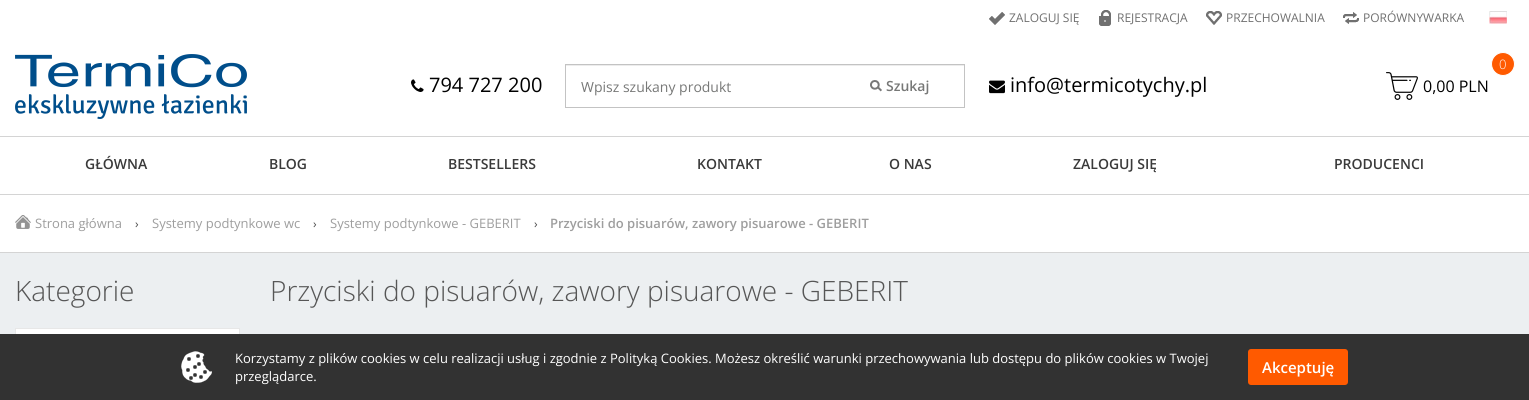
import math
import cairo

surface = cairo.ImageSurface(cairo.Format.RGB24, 1529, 400)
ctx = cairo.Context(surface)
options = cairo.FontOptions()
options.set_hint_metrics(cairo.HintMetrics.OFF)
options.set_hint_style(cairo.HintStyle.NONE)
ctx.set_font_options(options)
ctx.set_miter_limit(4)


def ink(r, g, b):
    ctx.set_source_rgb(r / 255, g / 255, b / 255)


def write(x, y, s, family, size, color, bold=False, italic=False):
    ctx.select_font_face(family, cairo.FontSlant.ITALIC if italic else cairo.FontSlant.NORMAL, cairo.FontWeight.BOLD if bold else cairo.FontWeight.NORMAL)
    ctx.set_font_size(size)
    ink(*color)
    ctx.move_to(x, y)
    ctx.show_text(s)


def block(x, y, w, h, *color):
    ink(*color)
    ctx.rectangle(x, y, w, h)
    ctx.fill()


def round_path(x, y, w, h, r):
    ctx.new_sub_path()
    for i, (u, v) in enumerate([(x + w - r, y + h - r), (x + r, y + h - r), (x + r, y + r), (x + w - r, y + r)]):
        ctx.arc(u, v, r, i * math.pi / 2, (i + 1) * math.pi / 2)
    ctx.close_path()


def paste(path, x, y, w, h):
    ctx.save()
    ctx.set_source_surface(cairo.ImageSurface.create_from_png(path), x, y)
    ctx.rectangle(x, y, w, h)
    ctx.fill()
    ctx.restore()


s1 = dict(family="Open Sans", size=12, color=(112, 112, 112))
s2 = dict(family="Open Sans", size=20, color=(0, 0, 0))
s3 = dict(family="Open Sans", size=14, color=(119, 120, 119))
s4 = dict(family="Open Sans SemiBold", size=14, color=(119, 120, 119))
s5 = dict(family="Open Sans Light", size=13, color=(255, 255, 255))
s6 = dict(family="Open Sans", size=16, color=(0, 0, 0))
s7 = dict(family="Open Sans SemiBold", size=14, color=(58, 58, 58))
s8 = dict(family="Open Sans", size=13, color=(158, 158, 158))
s9 = dict(family="Open Sans", size=12, color=(74, 74, 74))
s10 = dict(family="Open Sans SemiBold", size=13, color=(158, 158, 158))
s11 = dict(family="Open Sans Light", size=28, color=(86, 86, 86))
s12 = dict(family="Open Sans", size=13, color=(255, 255, 255))
s13 = dict(family="Open Sans SemiBold", size=15, color=(255, 255, 255))

ink(236, 239, 241)
ctx.paint()
block(0, 0, 1529, 136, 255, 255, 255)
paste("pic1.png", 989, 12, 16, 13)
write(1009, 22, "ZALOGUJ SIĘ", **s1)
paste("pic2.png", 1099, 10, 12, 16)
write(1117, 22, "REJESTRACJA", **s1)
paste("pic3.png", 1206, 11, 16, 14)
write(1226, 22, "PRZECHOWALNIA", **s1)
paste("pic4.png", 1343, 12, 16, 12)
write(1363, 22, "PORÓWNYWARKA", **s1)
paste("pic5.png", 1489, 11, 18, 13)
paste("pic6.png", 15, 54, 232, 65)
paste("pic7.png", 411, 79, 13, 13)
write(429, 92, "794 727 200", **s2)
block(566, 65, 398, 1, 236, 236, 236)
ctx.rectangle(565.5, 64.5, 399, 43)
ink(195, 195, 195)
ctx.set_line_width(1)
ctx.stroke()
write(581, 92, "Wpisz szukany produkt", **s3)
paste("pic8.png", 870, 80, 12, 12)
write(886, 91, "Szukaj", **s4)
paste("pic9.png", 989, 80, 16, 14)
write(1010, 92, "info@termicotychy.pl", **s2)
ink(255, 90, 0)
ctx.new_path()
ctx.arc(1503, 64, 11.5, 0, 2 * math.pi)
ctx.fill_preserve()
ink(255, 255, 255)
ctx.stroke()
write(1499, 69, "0", **s5)
paste("pic10.png", 1386, 72, 32, 28)
write(1423, 92, "0,00 PLN", **s6)
block(0, 137, 1529, 57, 255, 255, 255)
block(0, 136, 1529, 1, 212, 212, 212)
block(0, 194, 1529, 1, 212, 212, 212)
write(85, 169, "GŁÓWNA", **s7)
write(269, 169, "BLOG", **s7)
write(448, 169, "BESTSELLERS", **s7)
write(697, 169, "KONTAKT", **s7)
write(889, 169, "O NAS", **s7)
write(1073, 169, "ZALOGUJ SIĘ", **s7)
write(1334, 169, "PRODUCENCI", **s7)
block(0, 195, 1529, 57, 255, 255, 255)
block(0, 252, 1529, 1, 212, 212, 212)
paste("pic11.png", 15, 215, 16, 14)
write(35, 228, "Strona główna", **s8)
write(135, 228, "›", **s9)
write(152, 228, "Systemy podtynkowe wc", **s8)
write(313, 228, "›", **s9)
write(330, 228, "Systemy podtynkowe - GEBERIT", **s8)
write(534, 228, "›", **s9)
write(550, 228, "Przyciski do pisuarów, zawory pisuarowe - GEBERIT", **s10)
write(15, 301, "Kategorie", **s11)
block(16, 329, 223, 5, 255, 255, 255)
ctx.rectangle(15.5, 328.5, 224, 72)
ink(231, 231, 231)
ctx.stroke()
write(270, 301, "Przyciski do pisuarów, zawory pisuarowe - GEBERIT", **s11)
block(0, 334, 1529, 66, 50, 50, 50)
paste("pic12.png", 181, 351, 31, 32)
write(235, 363, "Korzystamy z plików cookies w celu realizacji usług i zgodnie z Polityką Cookies. Możesz określić warunki przechowywania lub dostępu do plików cookies w Twojej", **s12)
write(235, 381, "przeglądarce.", **s12)
ink(255, 90, 0)
round_path(1248, 349, 100, 36, 3)
ctx.fill()
write(1262, 373, "Akceptuję", **s13)
surface.write_to_png("screenshot.png")
